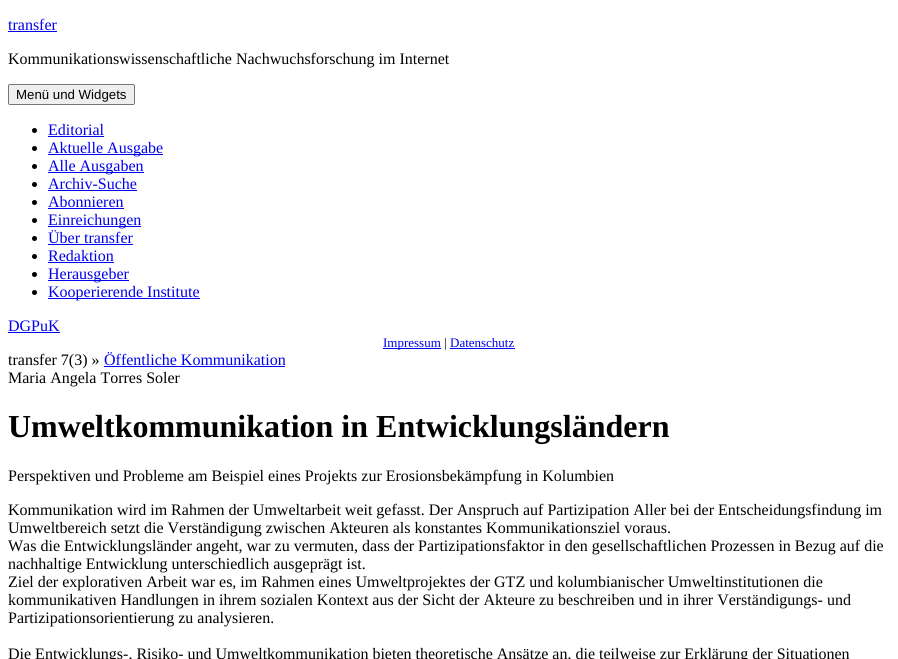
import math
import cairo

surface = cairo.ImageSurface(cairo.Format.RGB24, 898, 659)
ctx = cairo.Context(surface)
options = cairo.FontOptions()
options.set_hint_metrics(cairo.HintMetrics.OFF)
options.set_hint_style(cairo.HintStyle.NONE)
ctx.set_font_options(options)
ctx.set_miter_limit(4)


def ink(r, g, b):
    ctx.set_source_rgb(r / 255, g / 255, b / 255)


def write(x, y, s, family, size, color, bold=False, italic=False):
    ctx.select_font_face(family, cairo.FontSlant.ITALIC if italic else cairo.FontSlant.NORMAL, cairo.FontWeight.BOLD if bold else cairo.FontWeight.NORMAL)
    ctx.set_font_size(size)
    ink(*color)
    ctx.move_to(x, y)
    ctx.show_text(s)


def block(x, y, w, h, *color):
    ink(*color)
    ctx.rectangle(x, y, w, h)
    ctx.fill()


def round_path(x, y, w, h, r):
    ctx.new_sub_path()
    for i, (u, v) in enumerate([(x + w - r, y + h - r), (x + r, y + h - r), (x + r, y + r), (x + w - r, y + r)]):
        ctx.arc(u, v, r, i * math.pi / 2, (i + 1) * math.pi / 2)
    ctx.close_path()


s1 = dict(family="Liberation Serif", size=16, color=(0, 0, 238))
s2 = dict(family="Liberation Serif", size=16, color=(0, 0, 0))
s3 = dict(family="Liberation Sans", size=13.25, color=(0, 0, 0))
s4 = dict(family="Liberation Serif", size=13, color=(0, 0, 238))
s5 = dict(family="Liberation Serif", size=13, color=(0, 0, 0))
s6 = dict(family="Liberation Serif", size=32, color=(0, 0, 0), bold=True)

ink(255, 255, 255)
ctx.paint()
write(8, 30, "transfer", **s1)
block(8, 31, 49, 1, 0, 0, 238)
write(8, 64, "Kommunikationswissenschaftliche Nachwuchsforschung im Internet", **s2)
ink(239, 239, 239)
round_path(8.5, 84.5, 126, 20, 1.5)
ctx.fill_preserve()
ink(118, 118, 118)
ctx.set_line_width(1)
ctx.stroke()
write(16, 99, "Menü und Widgets", **s3)
ctx.new_path()
ctx.arc(34.5, 130.5, 2.5, 0, 2 * math.pi)
ctx.fill()
write(48, 135, "Editorial", **s1)
block(48, 136, 56, 1, 0, 0, 238)
ink(0, 0, 0)
ctx.new_path()
ctx.arc(34.5, 148.5, 2.5, 0, 2 * math.pi)
ctx.fill()
block(48, 154, 115, 1, 0, 0, 238)
write(48, 153, "Aktuelle Ausgabe", **s1)
ink(0, 0, 0)
ctx.new_path()
ctx.arc(34.5, 166.5, 2.5, 0, 2 * math.pi)
ctx.fill()
block(48, 172, 96, 1, 0, 0, 238)
write(48, 171, "Alle Ausgaben", **s1)
ink(0, 0, 0)
ctx.new_path()
ctx.arc(34.5, 184.5, 2.5, 0, 2 * math.pi)
ctx.fill()
write(48, 189, "Archiv-Suche", **s1)
block(48, 190, 89, 1, 0, 0, 238)
ink(0, 0, 0)
ctx.new_path()
ctx.arc(34.5, 202.5, 2.5, 0, 2 * math.pi)
ctx.fill()
write(48, 207, "Abonnieren", **s1)
block(48, 208, 76, 1, 0, 0, 238)
ink(0, 0, 0)
ctx.new_path()
ctx.arc(34.5, 220.5, 2.5, 0, 2 * math.pi)
ctx.fill()
block(48, 226, 93, 1, 0, 0, 238)
write(48, 225, "Einreichungen", **s1)
ink(0, 0, 0)
ctx.new_path()
ctx.arc(34.5, 238.5, 2.5, 0, 2 * math.pi)
ctx.fill()
write(48, 243, "Über transfer", **s1)
block(48, 244, 85, 1, 0, 0, 238)
ink(0, 0, 0)
ctx.new_path()
ctx.arc(34.5, 256.5, 2.5, 0, 2 * math.pi)
ctx.fill()
write(48, 261, "Redaktion", **s1)
block(48, 262, 66, 1, 0, 0, 238)
ink(0, 0, 0)
ctx.new_path()
ctx.arc(34.5, 274.5, 2.5, 0, 2 * math.pi)
ctx.fill()
block(48, 280, 81, 1, 0, 0, 238)
write(48, 279, "Herausgeber", **s1)
ink(0, 0, 0)
ctx.new_path()
ctx.arc(34.5, 292.5, 2.5, 0, 2 * math.pi)
ctx.fill()
block(48, 298, 152, 1, 0, 0, 238)
write(48, 297, "Kooperierende Institute", **s1)
write(8, 331, "DGPuK", **s1)
block(8, 332, 52, 1, 0, 0, 238)
block(383, 348, 58, 1, 0, 0, 238)
write(383, 347, "Impressum", **s4)
write(444, 347, "|", **s5)
write(450, 347, "Datenschutz", **s4)
block(450, 348, 65, 1, 0, 0, 238)
write(8, 365, "transfer 7(3) »", **s2)
write(104, 365, "Öffentliche Kommunikation", **s1)
block(104, 366, 181, 1, 0, 0, 238)
write(8, 383, "Maria Angela Torres Soler", **s2)
write(8, 437, "Umweltkommunikation in Entwicklungsländern", **s6)
write(8, 481, "Perspektiven und Probleme am Beispiel eines Projekts zur Erosionsbekämpfung in Kolumbien", **s2)
write(8, 515, "Kommunikation wird im Rahmen der Umweltarbeit weit gefasst. Der Anspruch auf Partizipation Aller bei der Entscheidungsfindung im", **s2)
write(8, 533, "Umweltbereich setzt die Verständigung zwischen Akteuren als konstantes Kommunikationsziel voraus.", **s2)
write(8, 551, "Was die Entwicklungsländer angeht, war zu vermuten, dass der Partizipationsfaktor in den gesellschaftlichen Prozessen in Bezug auf die", **s2)
write(8, 569, "nachhaltige Entwicklung unterschiedlich ausgeprägt ist.", **s2)
write(8, 587, "Ziel der explorativen Arbeit war es, im Rahmen eines Umweltprojektes der GTZ und kolumbianischer Umweltinstitutionen die", **s2)
write(8, 605, "kommunikativen Handlungen in ihrem sozialen Kontext aus der Sicht der Akteure zu beschreiben und in ihrer Verständigungs- und", **s2)
write(8, 623, "Partizipationsorientierung zu analysieren.", **s2)
write(8, 659, "Die Entwicklungs-, Risiko- und Umweltkommunikation bieten theoretische Ansätze an, die teilweise zur Erklärung der Situationen", **s2)
surface.write_to_png("screenshot.png")
